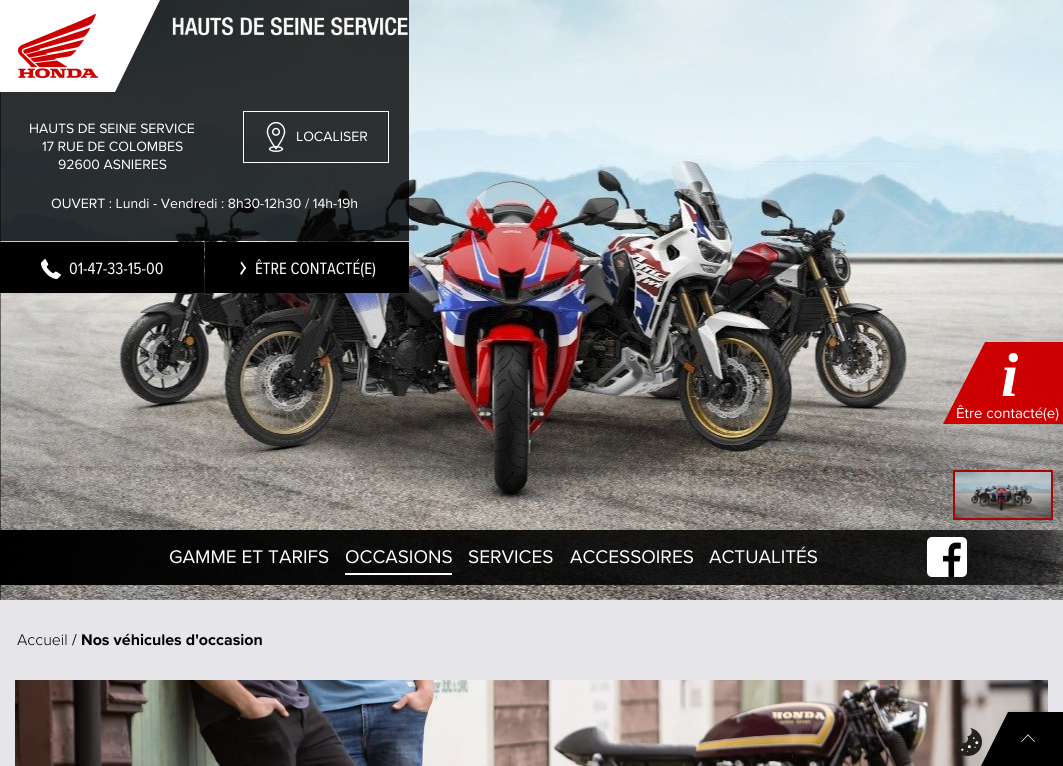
import math
import cairo

surface = cairo.ImageSurface(cairo.Format.RGB24, 1063, 766)
ctx = cairo.Context(surface)
options = cairo.FontOptions()
options.set_hint_metrics(cairo.HintMetrics.OFF)
options.set_hint_style(cairo.HintStyle.NONE)
ctx.set_font_options(options)
ctx.set_miter_limit(4)


def ink(r, g, b):
    ctx.set_source_rgb(r / 255, g / 255, b / 255)


def write(x, y, s, family, size, color, bold=False, italic=False):
    ctx.select_font_face(family, cairo.FontSlant.ITALIC if italic else cairo.FontSlant.NORMAL, cairo.FontWeight.BOLD if bold else cairo.FontWeight.NORMAL)
    ctx.set_font_size(size)
    ink(*color)
    ctx.move_to(x, y)
    ctx.show_text(s)


def block(x, y, w, h, *color):
    ink(*color)
    ctx.rectangle(x, y, w, h)
    ctx.fill()


def paste(path, x, y, w, h):
    ctx.save()
    ctx.set_source_surface(cairo.ImageSurface.create_from_png(path), x, y)
    ctx.rectangle(x, y, w, h)
    ctx.fill()
    ctx.restore()


s1 = dict(family="Proxima Nova", size=14, color=(255, 255, 255))
s2 = dict(family="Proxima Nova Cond", size=17, color=(255, 255, 255))
s3 = dict(family="Liberation Serif", size=62, color=(255, 255, 255), bold=True, italic=True)
s4 = dict(family="Proxima Nova", size=15, color=(255, 255, 255))
s5 = dict(family="Proxima Nova", size=19, color=(255, 255, 255))
s6 = dict(family="Proxima Nova Light", size=16, color=(0, 0, 0))
s7 = dict(family="Proxima Nova", size=16, color=(0, 0, 0))
s8 = dict(family="Proxima Nova", size=16, color=(0, 0, 0), bold=True)

ink(230, 229, 233)
ctx.paint()
block(0, 92, 1, 508, 0, 0, 0)
paste("pic1.png", 0, 0, 1063, 600)
ctx.set_source_rgba(0, 0, 0, 0.8)
ctx.rectangle(953, 470, 100, 50)
ctx.fill()
ctx.rectangle(954, 471, 98, 48)
ctx.set_source_rgba(0.8, 0, 0, 0.8)
ctx.stroke()
paste("pic2.png", 955, 472, 96, 46)
ctx.set_source_rgba(0, 0, 0, 0.8)
ctx.rectangle(0, 0, 409, 241)
ctx.fill()
block(0, 0, 45, 92, 255, 255, 255)
ctx.new_path()
ctx.move_to(45, 0)
ctx.line_to(160, 0)
ctx.line_to(115, 92)
ctx.line_to(0, 92)
ctx.close_path()
ctx.fill()
paste("pic3.png", 18, 13, 80, 66)
paste("pic4.png", 172, 17, 236, 19)
write(29, 133, "HAUTS DE SEINE SERVICE", **s1)
write(42, 151, "17 RUE DE COLOMBES", **s1)
write(58, 169, "92600 ASNIERES", **s1)
ctx.rectangle(243.5, 111.5, 145, 51)
ctx.set_line_width(1)
ctx.stroke()
paste("pic5.png", 266, 122, 20, 30)
write(296, 141, "LOCALISER", **s1)
write(51, 208, "OUVERT : Lundi - Vendredi : 8h30-12h30 / 14h-19h", **s1)
block(0, 242, 204, 51, 0, 0, 0)
paste("pic6.png", 41, 259, 20, 20)
write(69, 274, "01-47-33-15-00", **s2)
block(205, 242, 204, 51, 0, 0, 0)
ink(255, 255, 255)
ctx.new_path()
ctx.move_to(245, 269.5)
ctx.line_to(240.5, 263)
ctx.line_to(241.5, 261.5)
ctx.line_to(246, 268)
ctx.close_path()
ctx.fill()
ctx.new_path()
ctx.move_to(241.5, 275)
ctx.line_to(240, 273.5)
ctx.line_to(245, 266.5)
ctx.line_to(246, 268)
ctx.close_path()
ctx.fill()
write(255, 274, "ÊTRE CONTACTÉ(E)", **s2)
ink(204, 0, 0)
ctx.new_path()
ctx.move_to(985, 342)
ctx.line_to(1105, 342)
ctx.line_to(1063, 424)
ctx.line_to(943, 424)
ctx.close_path()
ctx.fill()
write(1001, 396, "i", **s3)
write(956, 418, "Être contacté(e)", **s4)
gradient = cairo.LinearGradient(0, 558, 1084, 558)
gradient.add_color_stop_rgba(0, 0, 0, 0, 1)
gradient.add_color_stop_rgba(0.9, 0, 0, 0, 0.8)
gradient.add_color_stop_rgba(0.96, 0, 0, 0, 0.6)
gradient.add_color_stop_rgba(1, 0, 0, 0, 0.1)
ctx.set_source(gradient)
ctx.rectangle(0, 530, 1063, 55)
ctx.fill()
write(169, 563, "GAMME ET TARIFS", **s5)
write(345, 563, "OCCASIONS", **s5)
block(345, 573, 107, 2, 255, 255, 255)
write(468, 563, "SERVICES", **s5)
write(570, 563, "ACCESSOIRES", **s5)
write(709, 563, "ACTUALITÉS", **s5)
paste("pic7.png", 927, 537, 40, 40)
write(17, 645, "Accueil", **s6)
write(72, 645, "/", **s7)
write(81, 645, "Nos véhicules d'occasion", **s8)
paste("pic8.png", 15, 680, 1033, 86)
ctx.new_path()
ctx.move_to(1063, 766)
ctx.line_to(981, 766)
ctx.line_to(1008, 712)
ctx.line_to(1063, 712)
ctx.close_path()
ctx.fill()
paste("pic9.png", 955, 728, 27, 28)
ink(255, 255, 255)
ctx.new_path()
ctx.move_to(1028.5, 735)
ctx.line_to(1021.5, 742)
ctx.line_to(1021, 741.5)
ctx.line_to(1028, 734.5)
ctx.close_path()
ctx.fill()
ctx.new_path()
ctx.move_to(1035, 741.5)
ctx.line_to(1034.5, 742)
ctx.line_to(1027.5, 735)
ctx.line_to(1028, 734.5)
ctx.close_path()
ctx.fill()
surface.write_to_png("screenshot.png")
